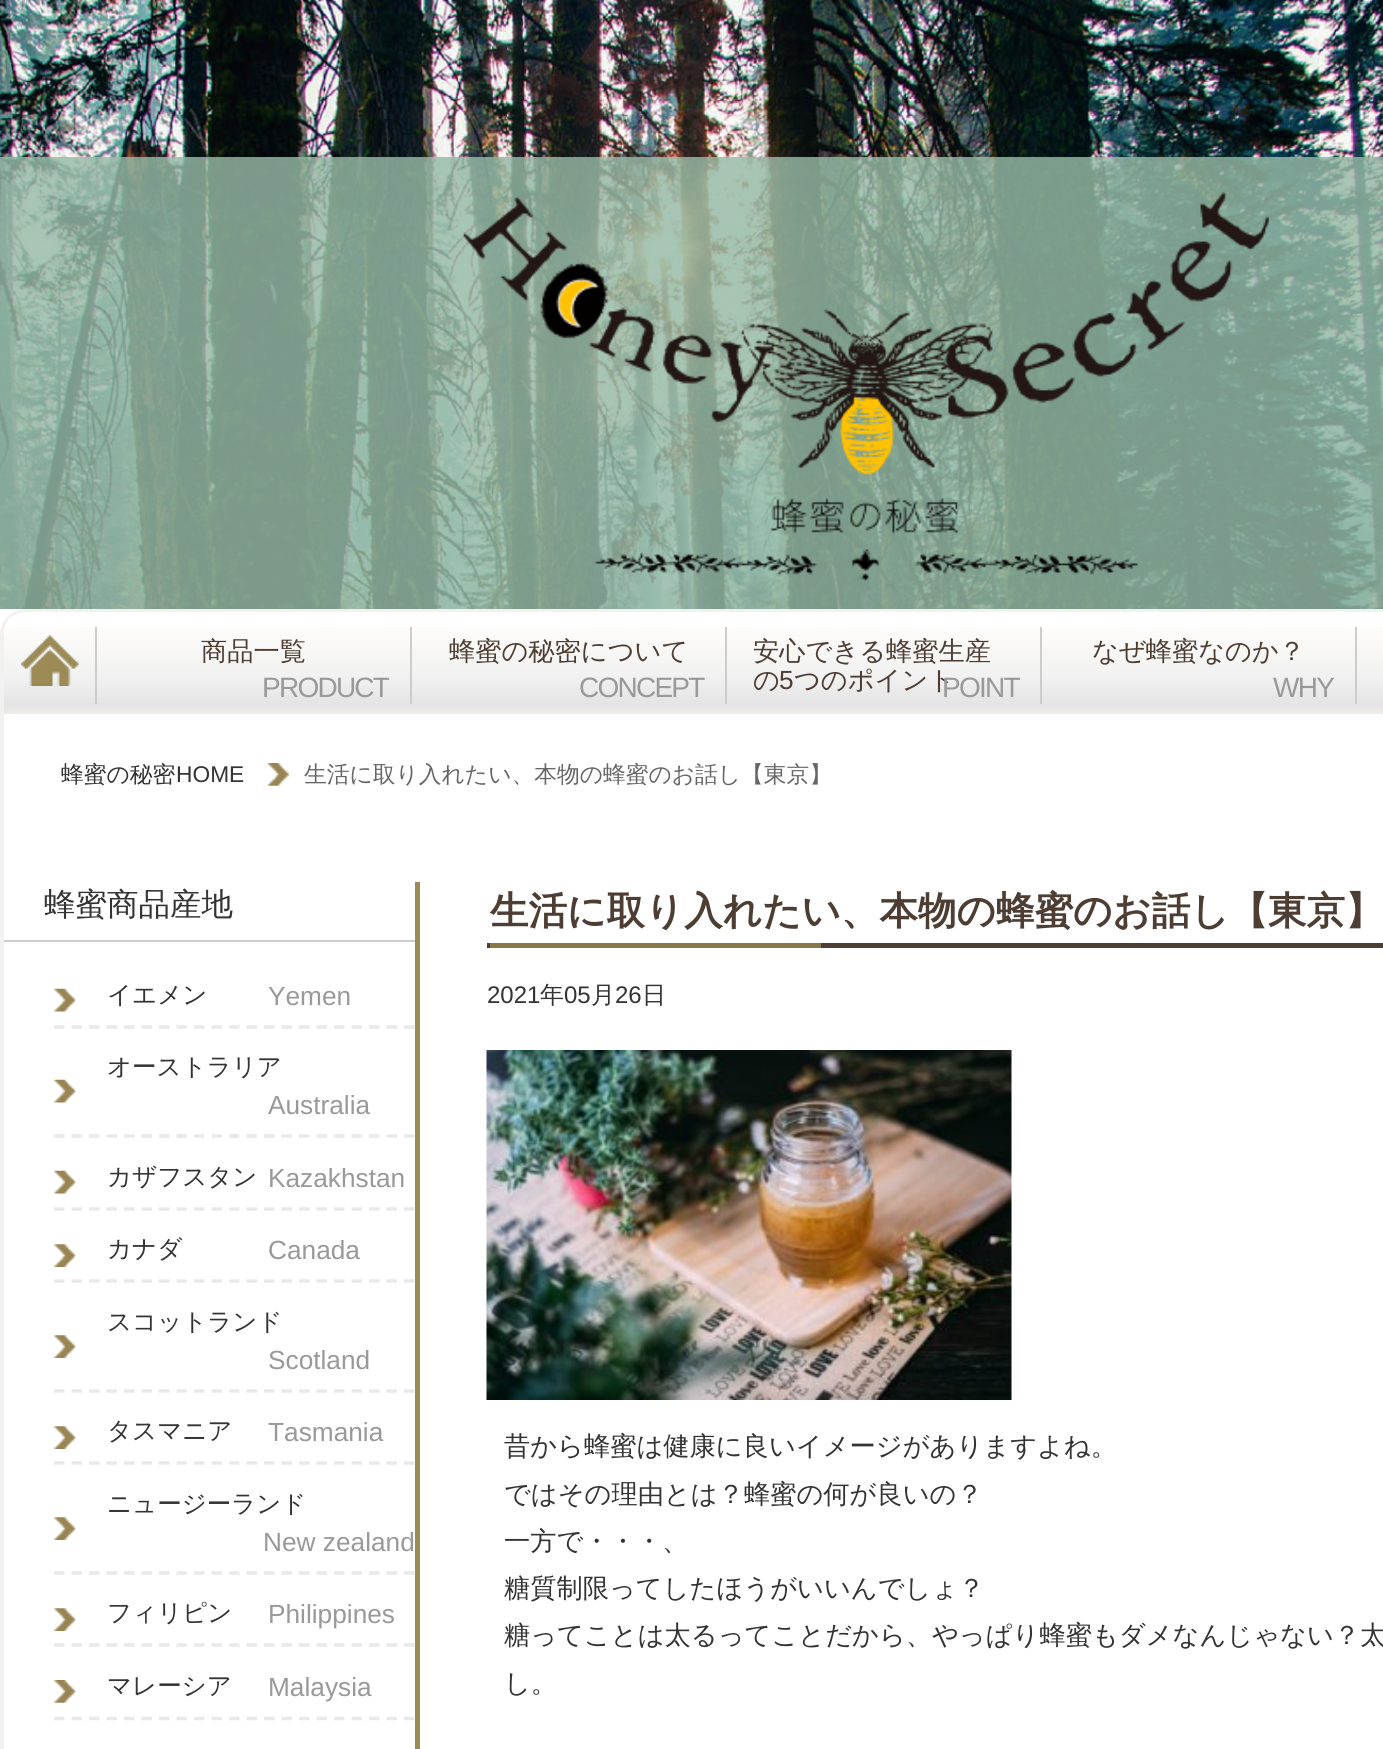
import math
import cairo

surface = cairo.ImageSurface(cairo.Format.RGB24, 1383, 1749)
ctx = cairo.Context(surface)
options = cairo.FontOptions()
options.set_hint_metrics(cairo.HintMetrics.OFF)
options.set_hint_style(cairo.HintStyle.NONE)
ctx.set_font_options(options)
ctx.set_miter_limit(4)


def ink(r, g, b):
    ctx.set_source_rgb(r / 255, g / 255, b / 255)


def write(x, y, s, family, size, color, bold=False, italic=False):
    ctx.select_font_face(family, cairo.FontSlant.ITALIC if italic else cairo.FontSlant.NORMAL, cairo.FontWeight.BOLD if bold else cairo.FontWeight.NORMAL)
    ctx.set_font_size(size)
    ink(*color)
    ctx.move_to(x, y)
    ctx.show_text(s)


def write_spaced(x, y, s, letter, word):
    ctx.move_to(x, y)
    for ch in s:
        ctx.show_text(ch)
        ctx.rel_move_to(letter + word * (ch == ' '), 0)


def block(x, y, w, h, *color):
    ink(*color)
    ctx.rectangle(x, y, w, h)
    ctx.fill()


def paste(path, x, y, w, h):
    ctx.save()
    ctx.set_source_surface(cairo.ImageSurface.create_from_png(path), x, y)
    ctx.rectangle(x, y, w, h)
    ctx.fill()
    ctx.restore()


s1 = dict(family="WenQuanYi Zen Hei Medium", size=26.25, color=(77, 61, 51))
s2 = dict(family="Liberation Sans", size=26.25, color=(77, 61, 51))
s3 = dict(family="WenQuanYi Zen Hei Medium", size=22.75, color=(51, 51, 51))
s4 = dict(family="Liberation Sans", size=22.75, color=(51, 51, 51))
s5 = dict(family="WenQuanYi Zen Hei Medium", size=22.75, color=(102, 102, 102))
s6 = dict(family="WenQuanYi Zen Hei Medium", size=31.5, color=(51, 51, 51))
s7 = dict(family="WenQuanYi Zen Hei Medium", size=24.5, color=(51, 51, 51))
s8 = dict(family="Liberation Sans", size=26.25, color=(153, 153, 153))
s9 = dict(family="WenQuanYi Zen Hei", size=38.5, color=(77, 61, 51), bold=True)
s10 = dict(family="Liberation Sans", size=24, color=(51, 51, 51))
s11 = dict(family="WenQuanYi Zen Hei Medium", size=24, color=(51, 51, 51))
s12 = dict(family="WenQuanYi Zen Hei Medium", size=26.25, color=(51, 51, 51))

ink(255, 255, 255)
ctx.paint()
paste("pic1.png", 0, 0, 1383, 609)
ctx.set_source_rgba(0.588, 0.725, 0.651, 0.82)
ctx.rectangle(0, 157, 1383, 452)
ctx.fill()
paste("pic2.png", 463, 192, 806, 389)
ink(241, 241, 241)
ctx.set_fill_rule(cairo.FillRule.EVEN_ODD)
ctx.new_path()
ctx.move_to(26, 609)
ctx.line_to(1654, 609)
ctx.curve_to(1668, 609, 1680, 621, 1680, 635)
ctx.line_to(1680, 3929)
ctx.line_to(0, 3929)
ctx.line_to(0, 635)
ctx.curve_to(0, 621, 12, 609, 26, 609)
ctx.close_path()
ctx.move_to(26, 612)
ctx.line_to(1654, 612)
ctx.curve_to(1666, 612, 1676, 623, 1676, 635)
ctx.line_to(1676, 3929)
ctx.line_to(4, 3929)
ctx.line_to(4, 635)
ctx.curve_to(4, 623, 14, 612, 26, 612)
ctx.close_path()
ctx.fill()
ink(255, 255, 255)
ctx.new_path()
ctx.move_to(23, 613)
ctx.line_to(1383, 613)
ctx.curve_to(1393.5, 613, 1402, 621.5, 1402, 632)
ctx.line_to(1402, 714)
ctx.line_to(4, 714)
ctx.line_to(4, 632)
ctx.curve_to(4, 621.5, 12.5, 613, 23, 613)
ctx.close_path()
ctx.fill()
paste("pic3.png", 4, 627, 1379, 87)
paste("pic4.png", 21, 635, 58, 51)
block(95, 627, 2, 77, 204, 204, 204)
write(201, 660, "商品一覧", **s1)
block(410, 627, 2, 77, 204, 204, 204)
ctx.select_font_face("Liberation Sans")
ctx.set_font_size(28)
ink(153, 153, 153)
write_spaced(262, 697, "PRODUCT", -1.75, 0)
write(449, 660, "蜂蜜の秘密について", **s1)
block(725, 627, 2, 77, 204, 204, 204)
ctx.select_font_face("Liberation Sans")
ctx.set_font_size(28)
ink(153, 153, 153)
write_spaced(579, 697, "CONCEPT", -1.75, 0)
write(753, 660, "安心できる蜂蜜生産", **s1)
write(753, 689, "の", **s1)
write(779, 689, "5", **s2)
write(794, 689, "つのポイント", **s1)
block(1040, 627, 2, 77, 204, 204, 204)
ctx.select_font_face("Liberation Sans")
ctx.set_font_size(28)
ink(153, 153, 153)
write_spaced(942, 697, "POINT", -1.75, 0)
write(1092, 660, "なぜ蜂蜜なのか？", **s1)
block(1355, 627, 2, 77, 204, 204, 204)
ctx.select_font_face("Liberation Sans")
ctx.set_font_size(28)
ink(153, 153, 153)
write_spaced(1273, 697, "WHY", -1.75, 0)
paste("pic5.png", 267, 763, 22, 23)
write(61, 782, "蜂蜜の秘密", **s3)
write(176, 782, "HOME", **s4)
write(304, 782, "生活に取り入れたい、本物の蜂蜜のお話し【東京】", **s5)
block(415, 882, 5, 867, 157, 139, 85)
block(4, 940, 411, 2, 204, 204, 204)
write(44, 915, "蜂蜜商品産地", **s6)
paste("pic6.png", 54, 988, 22, 24)
ctx.new_path()
ctx.move_to(54, 1027)
ctx.line_to(415, 1027)
ink(233, 233, 233)
ctx.set_line_width(3.5)
ctx.set_dash([10.5, 7])
ctx.stroke()
write(107, 1003, "イエメン", **s7)
write(268, 1005, "Yemen", **s8)
paste("pic6.png", 54, 1079, 22, 24)
ctx.new_path()
ctx.move_to(54, 1136)
ctx.line_to(415, 1136)
ink(233, 233, 233)
ctx.stroke()
write(107, 1075, "オーストラリア", **s7)
write(268, 1114, "Australia", **s8)
paste("pic6.png", 54, 1170, 22, 24)
ctx.new_path()
ctx.move_to(54, 1209)
ctx.line_to(415, 1209)
ink(233, 233, 233)
ctx.stroke()
write(107, 1185, "カザフスタン", **s7)
write(268, 1187, "Kazakhstan", **s8)
paste("pic7.png", 54, 1244, 22, 23)
ctx.new_path()
ctx.move_to(54, 1281)
ctx.line_to(415, 1281)
ink(233, 233, 233)
ctx.stroke()
write(107, 1257, "カナダ", **s7)
write(268, 1259, "Canada", **s8)
paste("pic7.png", 54, 1335, 22, 23)
ctx.new_path()
ctx.move_to(54, 1391)
ctx.line_to(415, 1391)
ink(233, 233, 233)
ctx.stroke()
write(107, 1330, "スコットランド", **s7)
write(268, 1369, "Scotland", **s8)
paste("pic7.png", 54, 1426, 22, 23)
ctx.new_path()
ctx.move_to(54, 1463)
ctx.line_to(415, 1463)
ink(233, 233, 233)
ctx.stroke()
write(107, 1439, "タスマニア", **s7)
write(268, 1441, "Tasmania", **s8)
paste("pic7.png", 54, 1517, 22, 23)
ctx.new_path()
ctx.move_to(54, 1573)
ctx.line_to(415, 1573)
ink(233, 233, 233)
ctx.stroke()
write(107, 1512, "ニュージーランド", **s7)
write(263, 1551, "New zealand", **s8)
paste("pic7.png", 54, 1608, 22, 23)
ctx.new_path()
ctx.move_to(54, 1645)
ctx.line_to(415, 1645)
ink(233, 233, 233)
ctx.stroke()
write(107, 1621, "フィリピン", **s7)
write(268, 1623, "Philippines", **s8)
paste("pic8.png", 54, 1680, 22, 23)
ctx.new_path()
ctx.move_to(54, 1718.5)
ctx.line_to(415, 1718.5)
ink(233, 233, 233)
ctx.stroke()
write(107, 1694, "マレーシア", **s7)
write(268, 1696, "Malaysia", **s8)
block(487, 943, 896, 5, 77, 61, 51)
write(490, 924, "生活に取り入れたい、本物の蜂蜜のお話し【東京】", **s9)
block(490, 943, 331, 5, 137, 120, 74)
write(487, 1003, "2021", **s10)
write(540, 1003, "年", **s11)
write(564, 1003, "05", **s10)
write(591, 1003, "月", **s11)
write(615, 1003, "26", **s10)
write(642, 1003, "日", **s11)
paste("pic9.png", 486, 1050, 526, 350)
write(504, 1455, "昔から蜂蜜は健康に良いイメージがありますよね。", **s12)
write(504, 1503, "ではその理由とは？蜂蜜の何が良いの？", **s12)
write(504, 1550, "一方で・・・、", **s12)
write(504, 1597, "糖質制限ってしたほうがいいんでしょ？", **s12)
write(504, 1644, "糖ってことは太るってことだから、やっぱり蜂蜜もダメなんじゃない？太", **s12)
write(504, 1692, "し。", **s12)
surface.write_to_png("screenshot.png")
